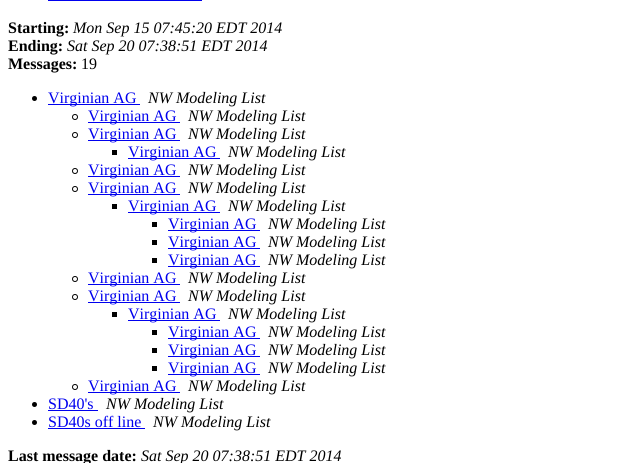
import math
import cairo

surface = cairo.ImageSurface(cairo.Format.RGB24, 626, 463)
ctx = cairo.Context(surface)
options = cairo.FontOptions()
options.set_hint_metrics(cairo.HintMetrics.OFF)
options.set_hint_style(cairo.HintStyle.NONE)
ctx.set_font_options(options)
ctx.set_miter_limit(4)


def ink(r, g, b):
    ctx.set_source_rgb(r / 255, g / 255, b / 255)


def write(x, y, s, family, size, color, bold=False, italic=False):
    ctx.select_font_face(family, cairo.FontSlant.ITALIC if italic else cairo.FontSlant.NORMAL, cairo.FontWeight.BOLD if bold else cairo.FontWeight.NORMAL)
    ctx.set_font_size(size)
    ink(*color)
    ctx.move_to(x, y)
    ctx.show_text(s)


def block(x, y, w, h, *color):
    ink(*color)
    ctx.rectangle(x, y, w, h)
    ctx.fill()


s1 = dict(family="Liberation Serif", size=16, color=(0, 0, 0), bold=True)
s2 = dict(family="Liberation Serif", size=16, color=(0, 0, 0), italic=True)
s3 = dict(family="Liberation Serif", size=16, color=(0, 0, 0))
s4 = dict(family="Liberation Serif", size=16, color=(0, 0, 238))

ink(255, 255, 255)
ctx.paint()
block(48, 0, 154, 1, 0, 0, 238)
write(8, 33, "Starting:", **s1)
write(73, 33, "Mon Sep 15 07:45:20 EDT 2014", **s2)
write(8, 51, "Ending:", **s1)
write(67, 51, "Sat Sep 20 07:38:51 EDT 2014", **s2)
write(8, 69, "Messages:", **s1)
write(81, 69, "19", **s3)
ctx.new_path()
ctx.arc(34.5, 98.5, 2.5, 0, 2 * math.pi)
ctx.fill()
block(48, 104, 92, 1, 0, 0, 238)
write(48, 103, "Virginian AG", **s4)
write(148, 103, "NW Modeling List", **s2)
ctx.new_path()
ctx.arc(75, 117, 2.5, 0, 2 * math.pi)
ctx.set_line_width(1)
ctx.stroke()
block(88, 122, 92, 1, 0, 0, 238)
write(88, 121, "Virginian AG", **s4)
write(188, 121, "NW Modeling List", **s2)
ctx.new_path()
ctx.arc(75, 135, 2.5, 0, 2 * math.pi)
ctx.stroke()
block(88, 140, 92, 1, 0, 0, 238)
write(88, 139, "Virginian AG", **s4)
write(188, 139, "NW Modeling List", **s2)
block(112, 150, 5, 5, 0, 0, 0)
block(128, 158, 92, 1, 0, 0, 238)
write(128, 157, "Virginian AG", **s4)
write(228, 157, "NW Modeling List", **s2)
ctx.new_path()
ctx.arc(75, 171, 2.5, 0, 2 * math.pi)
ctx.stroke()
block(88, 176, 92, 1, 0, 0, 238)
write(88, 175, "Virginian AG", **s4)
write(188, 175, "NW Modeling List", **s2)
ctx.new_path()
ctx.arc(75, 189, 2.5, 0, 2 * math.pi)
ctx.stroke()
block(88, 194, 92, 1, 0, 0, 238)
write(88, 193, "Virginian AG", **s4)
write(188, 193, "NW Modeling List", **s2)
block(112, 204, 5, 5, 0, 0, 0)
block(128, 212, 92, 1, 0, 0, 238)
write(128, 211, "Virginian AG", **s4)
write(228, 211, "NW Modeling List", **s2)
block(152, 222, 5, 5, 0, 0, 0)
block(168, 230, 92, 1, 0, 0, 238)
write(168, 229, "Virginian AG", **s4)
write(268, 229, "NW Modeling List", **s2)
block(152, 240, 5, 5, 0, 0, 0)
block(168, 248, 92, 1, 0, 0, 238)
write(168, 247, "Virginian AG", **s4)
write(268, 247, "NW Modeling List", **s2)
block(152, 258, 5, 5, 0, 0, 0)
block(168, 266, 92, 1, 0, 0, 238)
write(168, 265, "Virginian AG", **s4)
write(268, 265, "NW Modeling List", **s2)
ctx.new_path()
ctx.arc(75, 279, 2.5, 0, 2 * math.pi)
ctx.stroke()
block(88, 284, 92, 1, 0, 0, 238)
write(88, 283, "Virginian AG", **s4)
write(188, 283, "NW Modeling List", **s2)
ctx.new_path()
ctx.arc(75, 297, 2.5, 0, 2 * math.pi)
ctx.stroke()
block(88, 302, 92, 1, 0, 0, 238)
write(88, 301, "Virginian AG", **s4)
write(188, 301, "NW Modeling List", **s2)
block(112, 312, 5, 5, 0, 0, 0)
block(128, 320, 92, 1, 0, 0, 238)
write(128, 319, "Virginian AG", **s4)
write(228, 319, "NW Modeling List", **s2)
block(152, 330, 5, 5, 0, 0, 0)
block(168, 338, 92, 1, 0, 0, 238)
write(168, 337, "Virginian AG", **s4)
write(268, 337, "NW Modeling List", **s2)
block(152, 348, 5, 5, 0, 0, 0)
block(168, 356, 92, 1, 0, 0, 238)
write(168, 355, "Virginian AG", **s4)
write(268, 355, "NW Modeling List", **s2)
block(152, 366, 5, 5, 0, 0, 0)
block(168, 374, 92, 1, 0, 0, 238)
write(168, 373, "Virginian AG", **s4)
write(268, 373, "NW Modeling List", **s2)
ctx.new_path()
ctx.arc(75, 387, 2.5, 0, 2 * math.pi)
ctx.stroke()
block(88, 392, 92, 1, 0, 0, 238)
write(88, 391, "Virginian AG", **s4)
write(188, 391, "NW Modeling List", **s2)
ctx.new_path()
ctx.arc(34.5, 404.5, 2.5, 0, 2 * math.pi)
ctx.fill()
write(48, 409, "SD40's", **s4)
block(48, 410, 50, 1, 0, 0, 238)
write(106, 409, "NW Modeling List", **s2)
ctx.new_path()
ctx.arc(34.5, 422.5, 2.5, 0, 2 * math.pi)
ctx.fill()
write(48, 427, "SD40s off line", **s4)
block(48, 428, 97, 1, 0, 0, 238)
write(153, 427, "NW Modeling List", **s2)
write(8, 461, "Last message date:", **s1)
write(141, 461, "Sat Sep 20 07:38:51 EDT 2014", **s2)
surface.write_to_png("screenshot.png")
